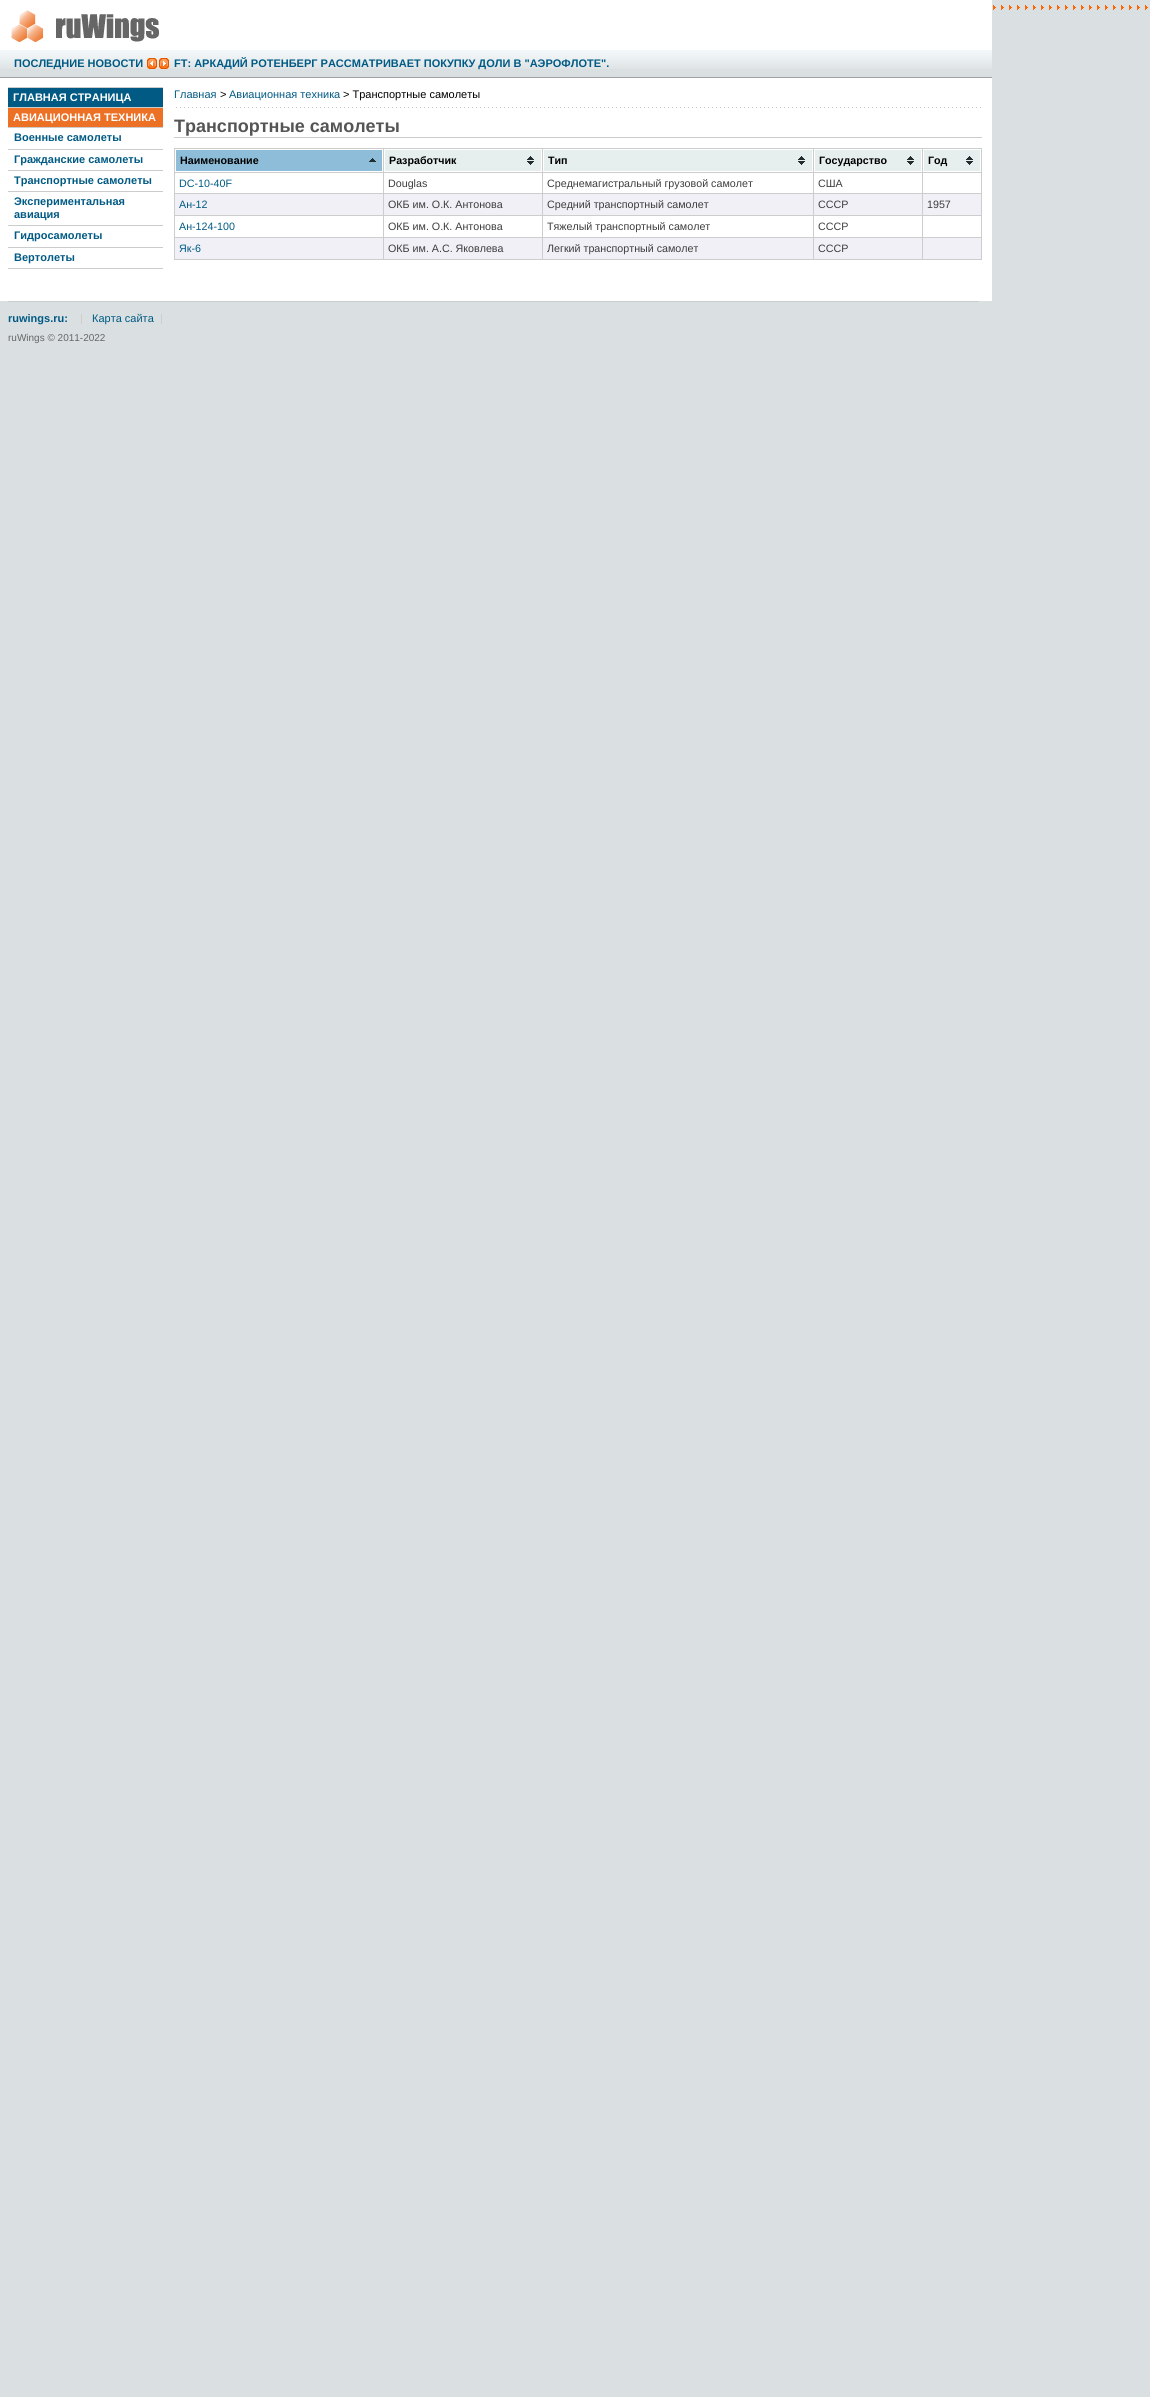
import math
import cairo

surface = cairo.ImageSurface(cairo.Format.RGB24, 1150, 2397)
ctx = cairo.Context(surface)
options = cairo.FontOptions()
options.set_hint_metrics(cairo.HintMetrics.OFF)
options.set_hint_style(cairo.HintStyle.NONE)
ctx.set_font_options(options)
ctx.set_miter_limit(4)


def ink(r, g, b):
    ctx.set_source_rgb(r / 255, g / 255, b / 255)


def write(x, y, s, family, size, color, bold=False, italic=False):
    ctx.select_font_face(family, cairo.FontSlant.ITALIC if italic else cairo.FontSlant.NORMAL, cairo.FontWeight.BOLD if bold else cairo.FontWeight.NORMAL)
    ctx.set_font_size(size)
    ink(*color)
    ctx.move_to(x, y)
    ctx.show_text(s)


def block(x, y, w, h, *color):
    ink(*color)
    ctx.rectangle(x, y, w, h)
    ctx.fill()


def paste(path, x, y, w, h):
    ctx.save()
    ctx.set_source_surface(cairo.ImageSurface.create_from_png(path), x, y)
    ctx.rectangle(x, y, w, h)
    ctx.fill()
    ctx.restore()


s1 = dict(family="Liberation Sans", size=11, color=(0, 90, 132), bold=True)
s2 = dict(family="Liberation Sans", size=11, color=(255, 255, 255), bold=True)
s3 = dict(family="Liberation Sans", size=11, color=(0, 90, 132))
s4 = dict(family="Liberation Sans", size=11, color=(0, 0, 0))
s5 = dict(family="Liberation Sans", size=18, color=(85, 85, 85), bold=True)
s6 = dict(family="Liberation Sans", size=10.7, color=(0, 0, 0), bold=True)
s7 = dict(family="Liberation Sans", size=10.7, color=(0, 90, 132))
s8 = dict(family="Liberation Sans", size=10.7, color=(61, 61, 61))
s9 = dict(family="Liberation Sans", size=11, color=(204, 204, 204))
s10 = dict(family="Liberation Sans", size=10, color=(102, 102, 102))

ink(218, 223, 225)
ctx.paint()
paste("pic1.png", 993, 5, 155, 5)
block(0, 0, 992, 301, 255, 255, 255)
paste("pic2.png", 11, 10, 148, 32)
block(0, 69, 992, 8, 218, 223, 225)
paste("pic3.png", 0, 50, 992, 19)
block(0, 77, 992, 1, 160, 160, 162)
write(14, 67, "ПОСЛЕДНИЕ НОВОСТИ", **s1)
paste("pic4.png", 147, 58, 10, 11)
paste("pic5.png", 159, 58, 10, 11)
write(174, 67, "FT: АРКАДИЙ РОТЕНБЕРГ РАССМАТРИВАЕТ ПОКУПКУ ДОЛИ В \"АЭРОФЛОТЕ\".", **s1)
block(8, 268, 155, 1, 204, 204, 204)
block(8, 88, 155, 19, 0, 90, 132)
block(8, 87, 155, 1, 204, 204, 204)
write(13, 101, "ГЛАВНАЯ СТРАНИЦА", **s2)
block(8, 108, 155, 19, 237, 113, 37)
block(8, 107, 155, 1, 204, 204, 204)
write(13, 121, "АВИАЦИОННАЯ ТЕХНИКА", **s2)
block(8, 127, 155, 1, 204, 204, 204)
write(14, 141, "Военные самолеты", **s1)
block(8, 149, 155, 1, 204, 204, 204)
write(14, 163, "Гражданские самолеты", **s1)
block(8, 170, 155, 1, 204, 204, 204)
write(14, 184, "Транспортные самолеты", **s1)
block(8, 191, 155, 1, 204, 204, 204)
write(14, 205, "Экспериментальная", **s1)
write(14, 218, "авиация", **s1)
block(8, 225, 155, 1, 204, 204, 204)
write(14, 239, "Гидросамолеты", **s1)
block(8, 247, 155, 1, 204, 204, 204)
write(14, 261, "Вертолеты", **s1)
paste("pic6.png", 176, 107, 805, 1)
write(174, 98, "Главная", **s3)
write(220, 98, ">", **s4)
write(229, 98, "Авиационная техника", **s3)
write(343, 98, "> Транспортные самолеты", **s4)
block(174, 137, 808, 1, 204, 204, 204)
write(174, 132, "Транспортные самолеты", **s5)
block(174, 148, 808, 112, 205, 205, 205)
block(176, 150, 206, 21, 141, 189, 216)
paste("pic7.png", 369, 158, 7, 4)
ctx.rectangle(175.5, 149.5, 207, 22)
ink(255, 255, 255)
ctx.set_line_width(1)
ctx.stroke()
write(180, 164, "Наименование", **s6)
block(385, 150, 156, 21, 230, 238, 238)
paste("pic8.png", 527, 156, 7, 9)
ctx.rectangle(384.5, 149.5, 157, 22)
ink(255, 255, 255)
ctx.stroke()
write(389, 164, "Разработчик", **s6)
block(544, 150, 268, 21, 230, 238, 238)
paste("pic8.png", 798, 156, 7, 9)
ctx.rectangle(543.5, 149.5, 269, 22)
ink(255, 255, 255)
ctx.stroke()
write(548, 164, "Тип", **s6)
block(815, 150, 106, 21, 230, 238, 238)
paste("pic8.png", 907, 156, 7, 9)
ctx.rectangle(814.5, 149.5, 107, 22)
ink(255, 255, 255)
ctx.stroke()
write(819, 164, "Государство", **s6)
block(924, 150, 56, 21, 230, 238, 238)
paste("pic8.png", 966, 156, 7, 9)
ctx.rectangle(923.5, 149.5, 57, 22)
ink(255, 255, 255)
ctx.stroke()
write(928, 164, "Год", **s6)
block(175, 173, 208, 20, 255, 255, 255)
write(179, 187, "DC-10-40F", **s7)
block(384, 173, 158, 20, 255, 255, 255)
write(388, 187, "Douglas", **s8)
block(543, 173, 270, 20, 255, 255, 255)
write(547, 187, "Среднемагистральный грузовой самолет", **s8)
block(814, 173, 108, 20, 255, 255, 255)
write(818, 187, "США", **s8)
block(923, 173, 58, 20, 255, 255, 255)
block(175, 194, 208, 21, 240, 240, 246)
write(179, 208, "Ан-12", **s7)
block(384, 194, 158, 21, 240, 240, 246)
write(388, 208, "ОКБ им. О.К. Антонова", **s8)
block(543, 194, 270, 21, 240, 240, 246)
write(547, 208, "Средний транспортный самолет", **s8)
block(814, 194, 108, 21, 240, 240, 246)
write(818, 208, "СССР", **s8)
block(923, 194, 58, 21, 240, 240, 246)
write(927, 208, "1957", **s8)
block(175, 216, 208, 21, 255, 255, 255)
write(179, 230, "Ан-124-100", **s7)
block(384, 216, 158, 21, 255, 255, 255)
write(388, 230, "ОКБ им. О.К. Антонова", **s8)
block(543, 216, 270, 21, 255, 255, 255)
write(547, 230, "Тяжелый транспортный самолет", **s8)
block(814, 216, 108, 21, 255, 255, 255)
write(818, 230, "СССР", **s8)
block(923, 216, 58, 21, 255, 255, 255)
block(175, 238, 208, 21, 240, 240, 246)
write(179, 252, "Як-6", **s7)
block(384, 238, 158, 21, 240, 240, 246)
write(388, 252, "ОКБ им. А.С. Яковлева", **s8)
block(543, 238, 270, 21, 240, 240, 246)
write(547, 252, "Легкий транспортный самолет", **s8)
block(814, 238, 108, 21, 240, 240, 246)
write(818, 252, "СССР", **s8)
block(923, 238, 58, 21, 240, 240, 246)
block(8, 301, 971, 1, 204, 204, 204)
write(8, 322, "ruwings.ru:", **s1)
write(80, 322, "|", **s9)
write(92, 322, "Карта сайта", **s3)
write(160, 322, "|", **s9)
write(8, 341, "ruWings © 2011-2022", **s10)
surface.write_to_png("screenshot.png")
